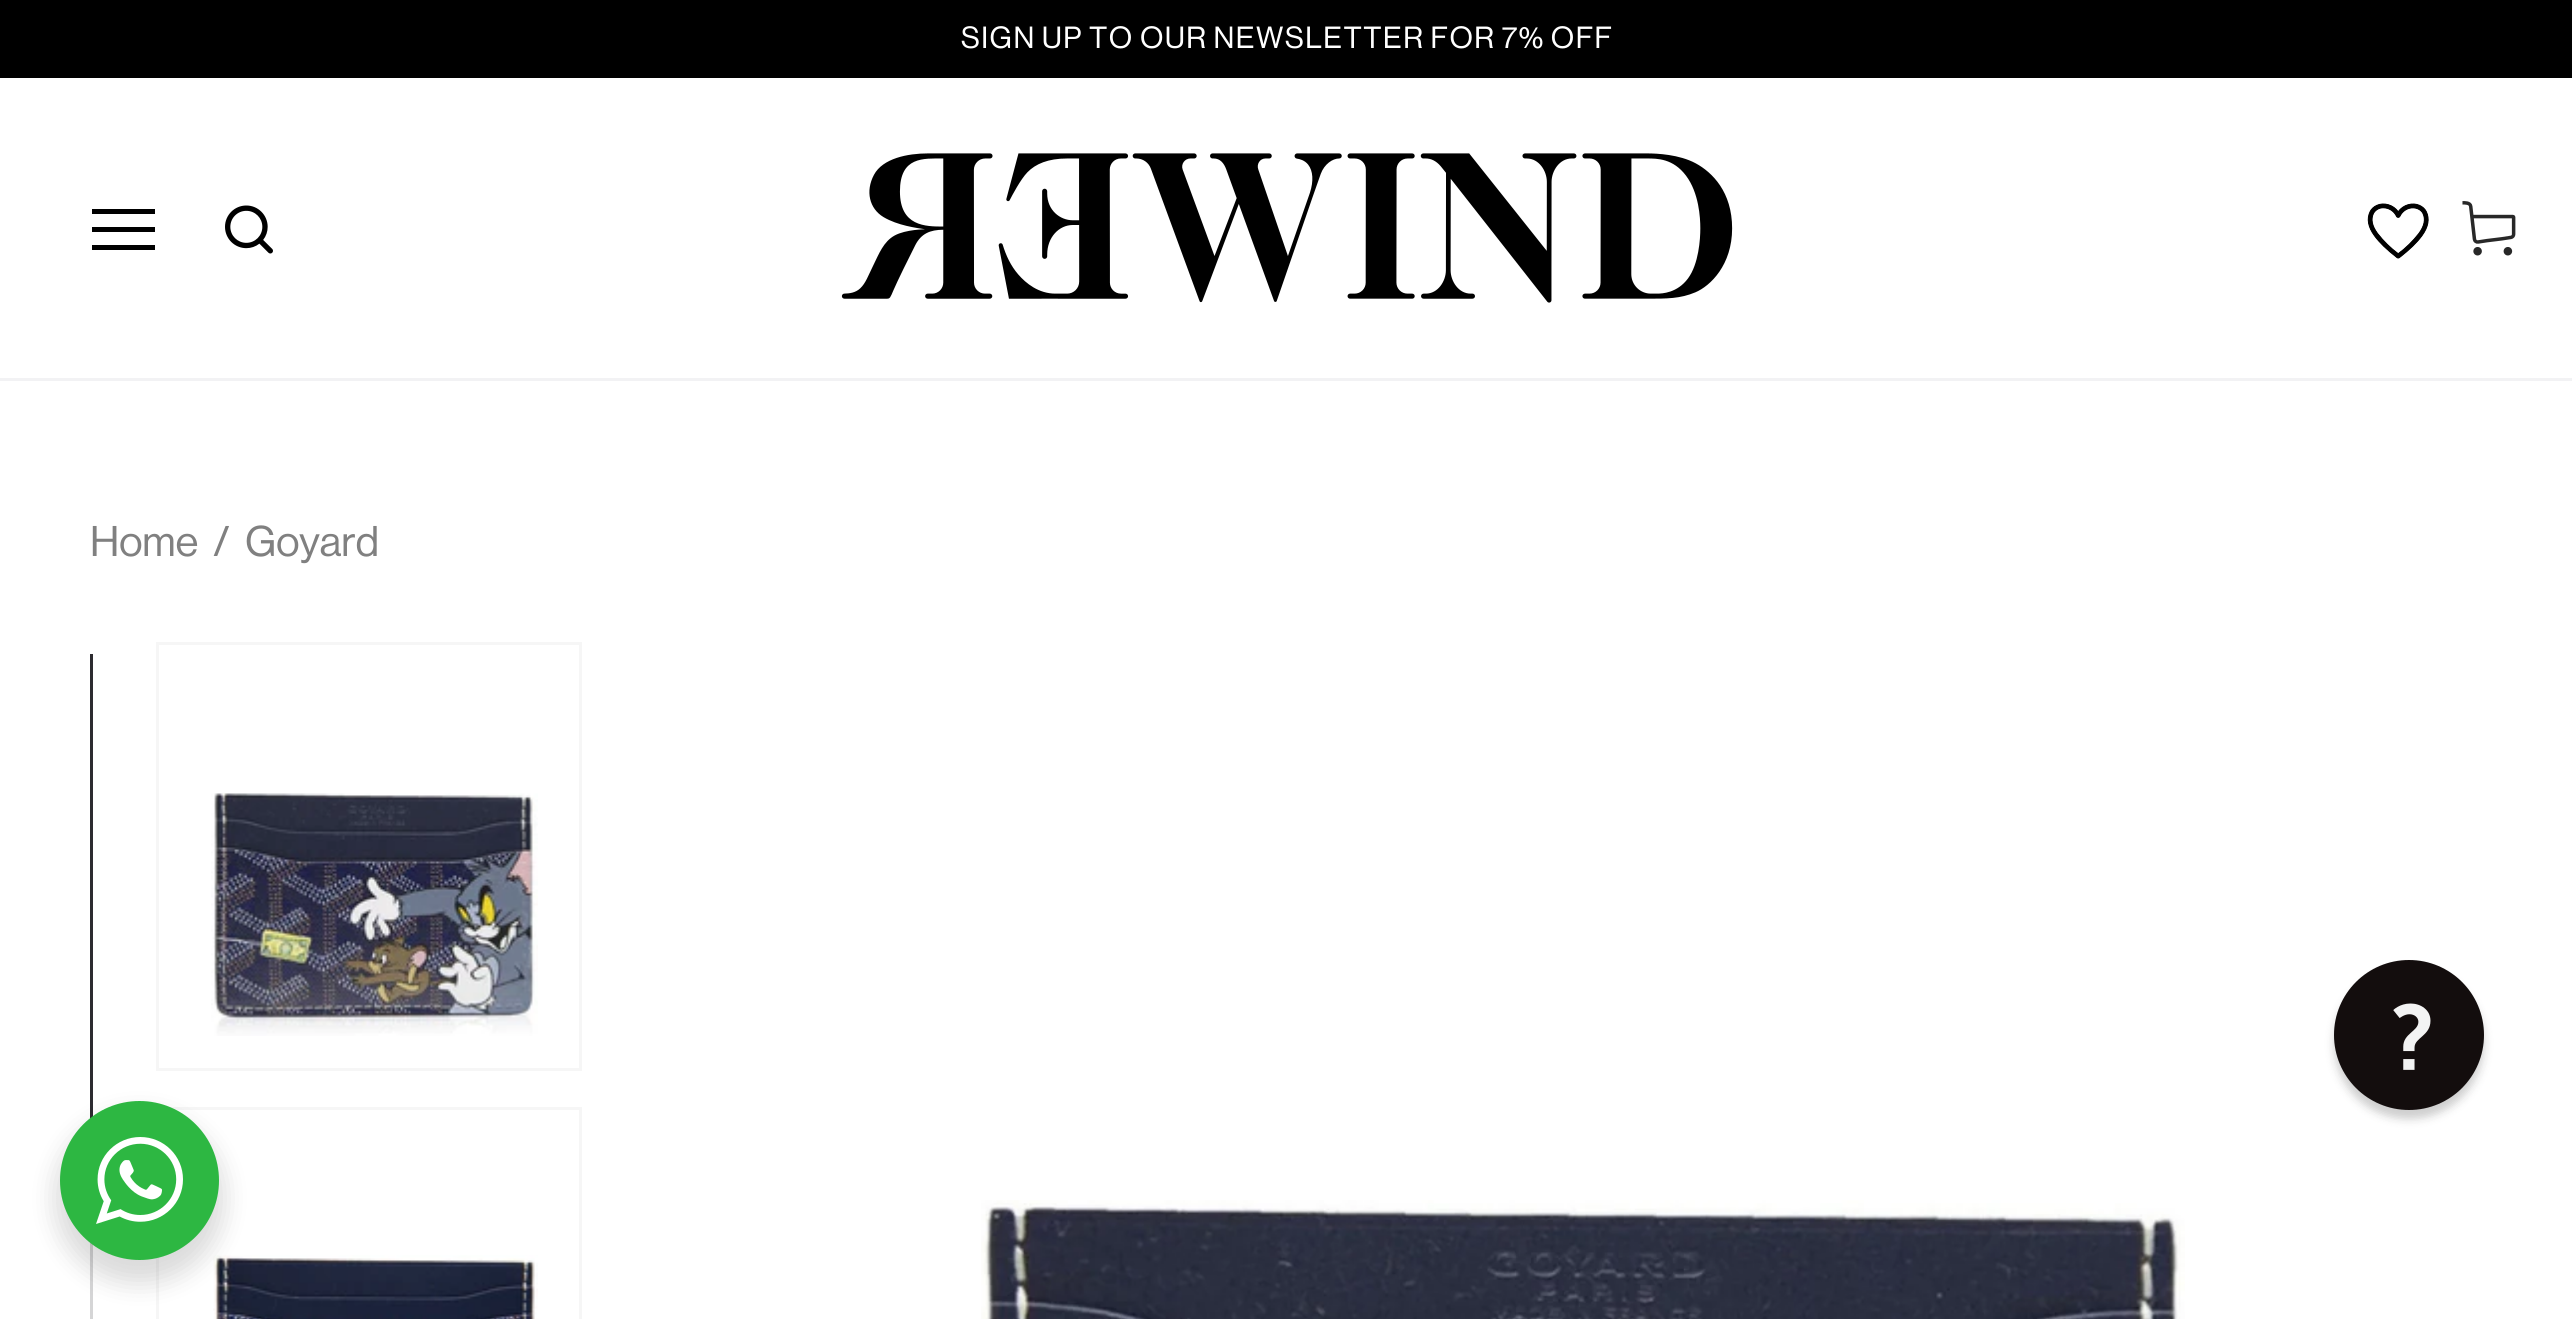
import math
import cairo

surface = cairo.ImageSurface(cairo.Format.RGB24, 2572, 1319)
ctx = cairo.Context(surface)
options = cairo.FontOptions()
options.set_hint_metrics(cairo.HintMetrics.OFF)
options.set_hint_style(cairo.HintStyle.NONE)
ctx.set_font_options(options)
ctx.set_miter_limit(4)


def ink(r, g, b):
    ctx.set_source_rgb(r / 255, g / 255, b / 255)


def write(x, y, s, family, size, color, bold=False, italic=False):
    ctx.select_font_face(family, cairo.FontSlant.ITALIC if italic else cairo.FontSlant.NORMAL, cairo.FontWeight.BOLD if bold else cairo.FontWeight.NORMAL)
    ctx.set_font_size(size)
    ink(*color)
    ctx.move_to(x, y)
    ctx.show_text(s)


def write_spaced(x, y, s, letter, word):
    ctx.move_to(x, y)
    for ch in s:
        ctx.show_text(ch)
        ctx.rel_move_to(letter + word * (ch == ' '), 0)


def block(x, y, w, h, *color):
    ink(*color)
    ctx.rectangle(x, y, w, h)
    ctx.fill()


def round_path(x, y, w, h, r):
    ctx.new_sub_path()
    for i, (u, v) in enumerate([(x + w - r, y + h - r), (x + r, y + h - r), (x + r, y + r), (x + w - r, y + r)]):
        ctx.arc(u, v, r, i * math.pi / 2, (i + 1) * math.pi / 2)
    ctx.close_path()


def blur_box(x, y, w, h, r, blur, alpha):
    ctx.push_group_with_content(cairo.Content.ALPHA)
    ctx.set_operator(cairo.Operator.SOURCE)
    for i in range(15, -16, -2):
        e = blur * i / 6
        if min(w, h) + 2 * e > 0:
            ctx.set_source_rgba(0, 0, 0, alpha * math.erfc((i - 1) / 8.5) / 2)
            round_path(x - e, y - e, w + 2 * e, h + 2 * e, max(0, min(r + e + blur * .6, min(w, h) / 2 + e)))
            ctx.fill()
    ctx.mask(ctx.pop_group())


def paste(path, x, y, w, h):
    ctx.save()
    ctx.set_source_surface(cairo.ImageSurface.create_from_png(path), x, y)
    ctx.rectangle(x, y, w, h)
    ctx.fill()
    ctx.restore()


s1 = dict(family="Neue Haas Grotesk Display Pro", size=42, color=(128, 128, 128))

ink(255, 255, 255)
ctx.paint()
block(0, 0, 2572, 78, 0, 0, 0)
ctx.select_font_face("Neue Haas Grotesk Display Pro")
ctx.set_font_size(30)
ink(255, 255, 255)
write_spaced(961, 48, "SIGN UP TO OUR NEWSLETTER FOR 7% OFF", 1.5, 0)
block(0, 378, 2572, 3, 242, 242, 244)
block(92, 245, 63, 5, 0, 0, 0)
block(92, 227, 63, 5, 0, 0, 0)
block(92, 209, 63, 5, 0, 0, 0)
paste("pic1.png", 225, 205, 48, 49)
paste("pic2.png", 841, 153, 892, 150)
paste("pic3.png", 2367, 203, 62, 56)
paste("pic4.png", 2462, 201, 54, 55)
write(90, 556, "Home", **s1)
write(213, 556, "/", **s1)
write(245, 556, "Goyard", **s1)
block(90, 654, 3, 465, 44, 43, 48)
block(90, 1242, 3, 77, 213, 213, 214)
paste("pic5.png", 211, 793, 327, 243)
ctx.rectangle(157.5, 643.5, 423, 426)
ink(246, 246, 246)
ctx.set_line_width(3)
ctx.stroke()
paste("pic6.png", 213, 1255, 325, 64)
ctx.rectangle(157.5, 1108.5, 423, 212)
ctx.stroke()
paste("pic7.png", 981, 1200, 1204, 119)
ink(13, 13, 13)
blur_box(2334, 969, 150, 150, 75, 4.5, 0.2)
ink(19, 13, 13)
ctx.arc(2409, 1035, 75, 0, 2 * math.pi)
ctx.fill()
paste("pic8.png", 2393, 1003, 38, 67)
ink(0, 0, 0)
blur_box(54, 1113, 171, 171, 85.5, 12, 0.14)
ink(45, 183, 66)
ctx.arc(139.5, 1180.5, 79.5, 0, 2 * math.pi)
ctx.fill()
paste("pic9.png", 96, 1137, 87, 87)
surface.write_to_png("screenshot.png")
